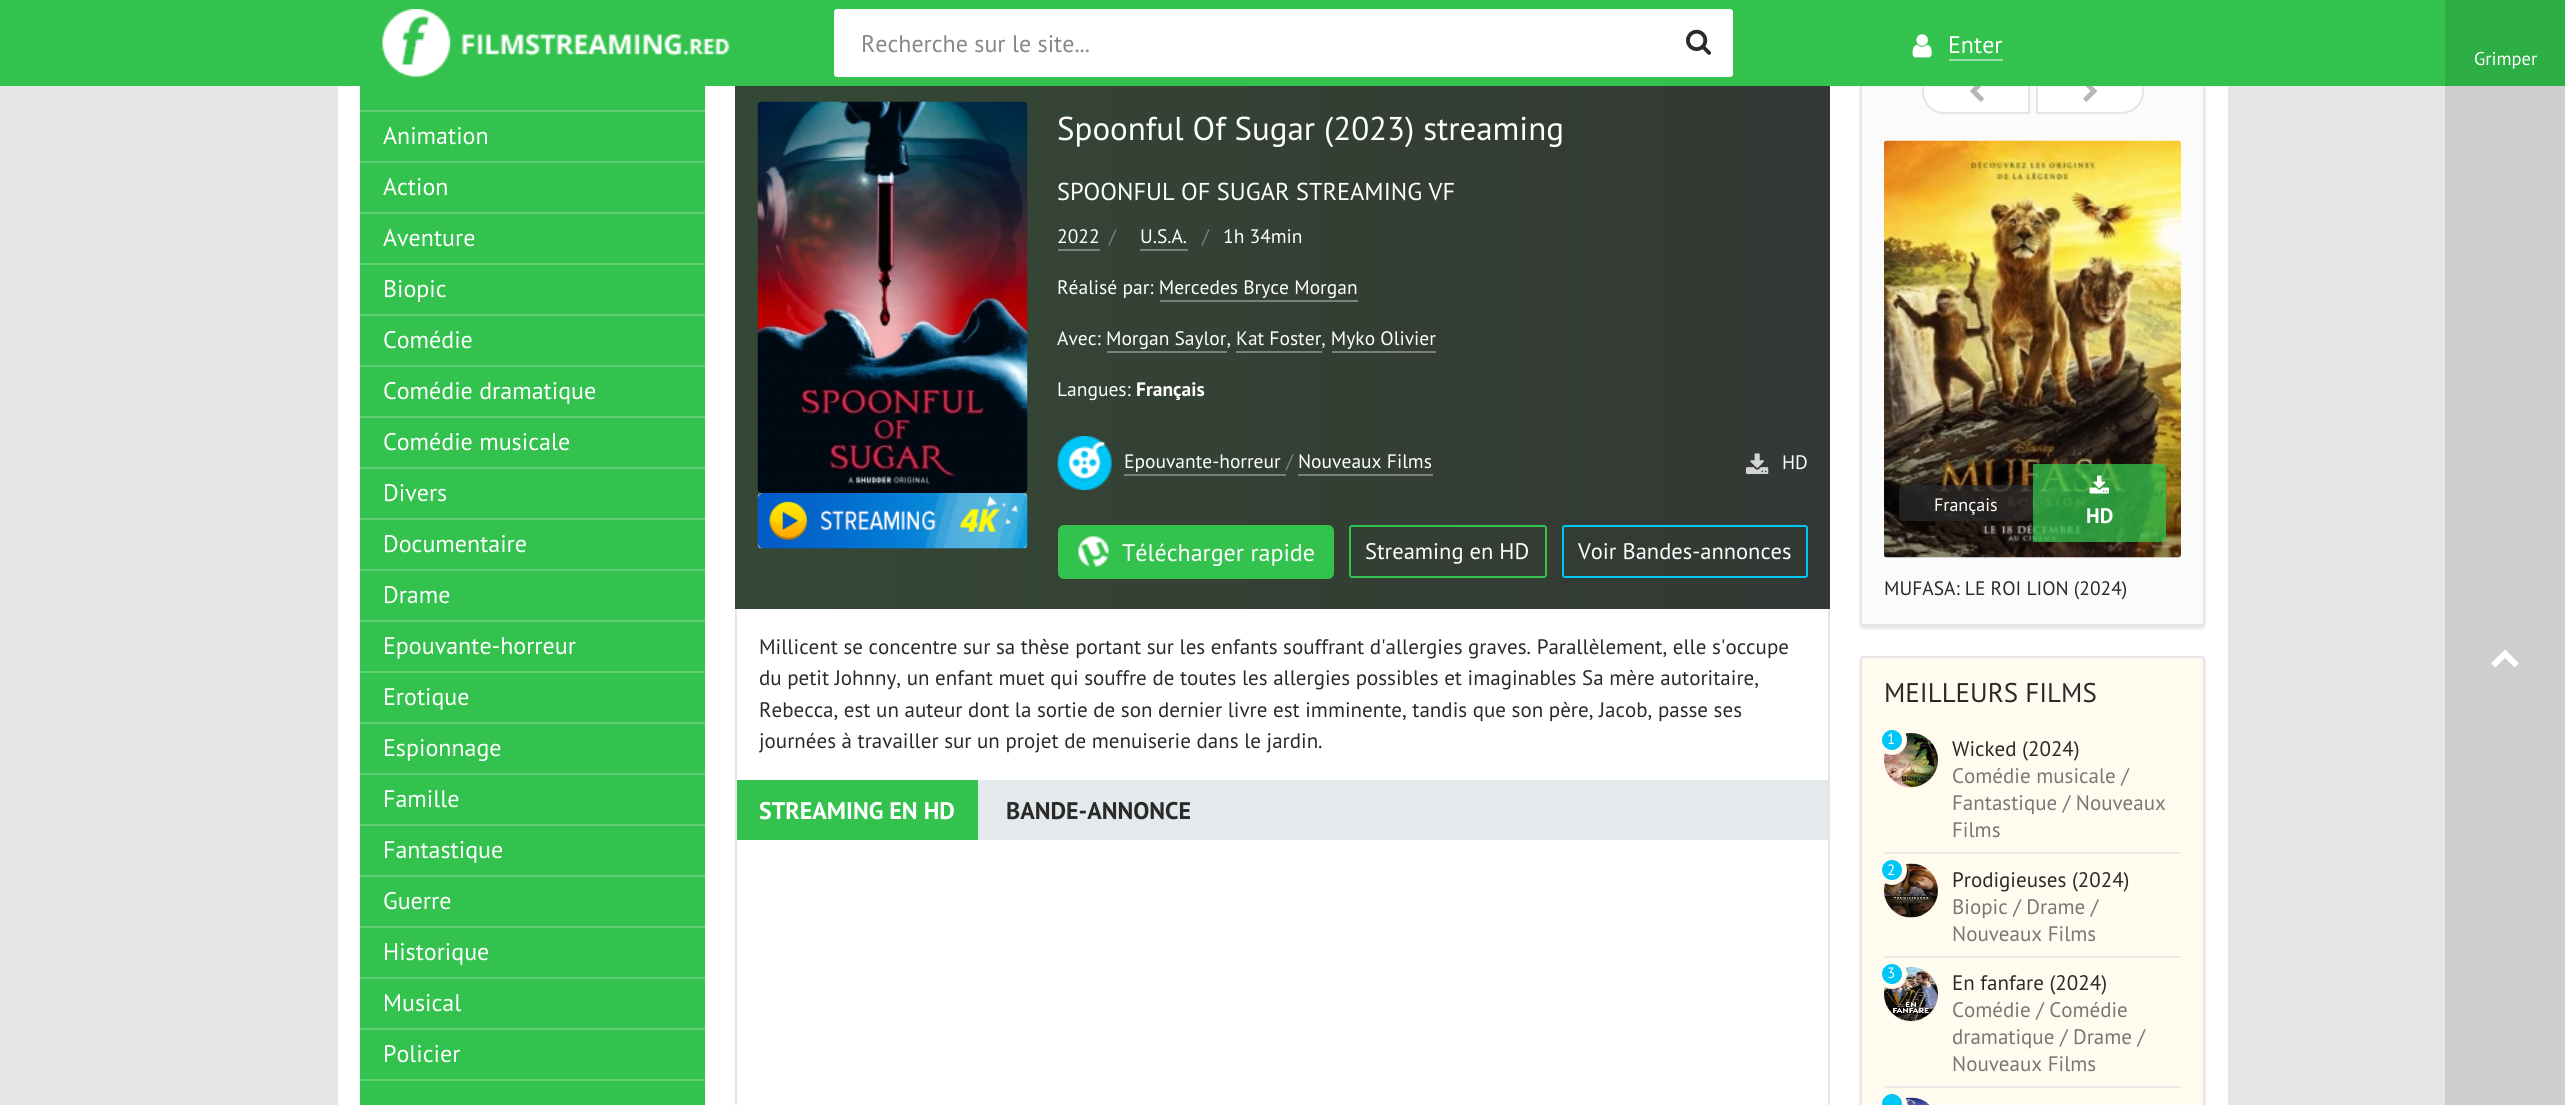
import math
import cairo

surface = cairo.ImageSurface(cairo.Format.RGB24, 2565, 1105)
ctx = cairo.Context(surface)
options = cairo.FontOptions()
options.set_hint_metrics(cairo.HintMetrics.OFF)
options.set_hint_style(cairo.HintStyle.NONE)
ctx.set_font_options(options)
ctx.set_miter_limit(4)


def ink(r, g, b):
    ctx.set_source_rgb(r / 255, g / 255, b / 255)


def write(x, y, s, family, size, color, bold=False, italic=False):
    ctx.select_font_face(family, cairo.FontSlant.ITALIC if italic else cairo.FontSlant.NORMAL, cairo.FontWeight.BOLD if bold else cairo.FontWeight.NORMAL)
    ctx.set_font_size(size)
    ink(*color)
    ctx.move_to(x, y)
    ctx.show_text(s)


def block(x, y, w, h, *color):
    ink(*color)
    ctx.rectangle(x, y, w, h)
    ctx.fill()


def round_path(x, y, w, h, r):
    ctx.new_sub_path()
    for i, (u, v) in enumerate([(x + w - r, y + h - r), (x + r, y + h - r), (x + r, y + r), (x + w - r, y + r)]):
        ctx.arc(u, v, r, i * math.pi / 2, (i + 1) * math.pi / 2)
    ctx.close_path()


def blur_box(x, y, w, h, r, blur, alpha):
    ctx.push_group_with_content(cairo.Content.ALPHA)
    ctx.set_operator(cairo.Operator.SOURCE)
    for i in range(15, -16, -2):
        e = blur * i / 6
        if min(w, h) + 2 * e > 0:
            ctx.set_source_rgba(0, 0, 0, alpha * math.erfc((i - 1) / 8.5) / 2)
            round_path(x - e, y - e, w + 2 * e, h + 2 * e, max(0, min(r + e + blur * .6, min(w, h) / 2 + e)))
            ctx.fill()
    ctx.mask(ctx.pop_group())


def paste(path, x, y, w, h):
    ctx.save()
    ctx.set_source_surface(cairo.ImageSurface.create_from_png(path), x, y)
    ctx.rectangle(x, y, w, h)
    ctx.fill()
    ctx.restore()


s1 = dict(family="PT Sans", size=24, color=(136, 136, 136))
s2 = dict(family="PT Sans", size=24, color=(255, 255, 255))
s3 = dict(family="PT Sans", size=18.5, color=(255, 255, 255))
s4 = dict(family="PT Sans", size=33, color=(255, 255, 255))
s5 = dict(family="PT Sans", size=24.4, color=(255, 255, 255))
s6 = dict(family="PT Sans", size=19.5, color=(255, 255, 255))
s7 = dict(family="PT Sans", size=19.5, color=(122, 128, 123))
s8 = dict(family="PT Sans", size=19.5, color=(255, 255, 255), bold=True)
s9 = dict(family="PT Sans", size=22.5, color=(255, 255, 255))
s10 = dict(family="PT Sans", size=21, color=(42, 42, 42))
s11 = dict(family="PT Sans", size=24, color=(255, 255, 255), bold=True)
s12 = dict(family="PT Sans", size=24, color=(42, 42, 42), bold=True)
s13 = dict(family="PT Sans", size=18, color=(255, 255, 255))
s14 = dict(family="PT Sans", size=21, color=(255, 255, 255), bold=True)
s15 = dict(family="PT Sans", size=19.5, color=(42, 42, 42))
s16 = dict(family="PT Sans", size=27, color=(42, 42, 42))
s17 = dict(family="PT Sans", size=15, color=(255, 255, 255))
s18 = dict(family="PT Sans", size=21, color=(119, 119, 119))

ink(229, 229, 229)
ctx.paint()
block(2445, 86, 120, 1019, 206, 206, 206)
block(338, 86, 1890, 1019, 255, 255, 255)
ink(0, 0, 0)
blur_box(360, -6, 345, 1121, 5, 1.5, 0.1)
ctx.rectangle(736, 81, 1093, 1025)
ink(229, 229, 229)
ctx.stroke()
ink(0, 0, 0)
blur_box(1860, -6, 345, 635, 3, 1.5, 0.1)
ink(251, 251, 251)
round_path(1861, -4, 343, 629, 2)
ctx.fill_preserve()
ink(229, 229, 229)
ctx.stroke()
ink(255, 255, 255)
ctx.new_path()
ctx.move_to(1944.5, 70)
ctx.line_to(2029, 70)
ctx.line_to(2029, 113)
ctx.line_to(1944.5, 113)
ctx.curve_to(1932.5, 113, 1923, 103.5, 1923, 91.5)
ctx.curve_to(1923, 79.5, 1932.5, 70, 1944.5, 70)
ctx.close_path()
ctx.fill_preserve()
ink(229, 229, 229)
ctx.stroke()
ink(255, 255, 255)
ctx.new_path()
ctx.move_to(2037, 70)
ctx.line_to(2121.5, 70)
ctx.curve_to(2133.5, 70, 2143, 79.5, 2143, 91.5)
ctx.curve_to(2143, 103.5, 2133.5, 113, 2121.5, 113)
ctx.line_to(2037, 113)
ctx.close_path()
ctx.fill_preserve()
ink(229, 229, 229)
ctx.stroke()
block(0, 0, 2445, 86, 50, 194, 77)
block(2445, 0, 120, 86, 45, 175, 69)
paste("pic1.png", 382, 9, 348, 68)
ink(255, 255, 255)
round_path(834, 9, 899, 68, 3)
ctx.fill()
write(861, 52, "Recherche sur le site...", **s1)
paste("pic2.png", 1686, 29, 25, 26)
paste("pic3.png", 1912, 34, 20, 24)
write(1948, 53, "Enter", **s2)
block(1949, 59, 54, 2, 153, 225, 166)
write(2474, 65, "Grimper", **s3)
paste("pic4.png", 2491, 650, 28, 18)
block(360, 86, 345, 1019, 50, 194, 77)
block(360, 110, 345, 2, 95, 207, 116)
block(360, 161, 345, 2, 95, 207, 116)
write(383, 144, "Animation", **s2)
block(360, 212, 345, 2, 95, 207, 116)
write(383, 195, "Action", **s2)
block(360, 263, 345, 2, 95, 207, 116)
write(383, 246, "Aventure", **s2)
block(360, 314, 345, 2, 95, 207, 116)
write(383, 297, "Biopic", **s2)
block(360, 365, 345, 2, 95, 207, 116)
write(383, 348, "Comédie", **s2)
block(360, 416, 345, 2, 95, 207, 116)
write(383, 399, "Comédie dramatique", **s2)
block(360, 467, 345, 2, 95, 207, 116)
write(383, 450, "Comédie musicale", **s2)
block(360, 518, 345, 2, 95, 207, 116)
write(383, 501, "Divers", **s2)
block(360, 569, 345, 2, 95, 207, 116)
write(383, 552, "Documentaire", **s2)
block(360, 620, 345, 2, 95, 207, 116)
write(383, 603, "Drame", **s2)
block(360, 671, 345, 2, 95, 207, 116)
write(383, 654, "Epouvante-horreur", **s2)
block(360, 722, 345, 2, 95, 207, 116)
write(383, 705, "Erotique", **s2)
block(360, 773, 345, 2, 95, 207, 116)
write(383, 756, "Espionnage", **s2)
block(360, 824, 345, 2, 95, 207, 116)
write(383, 807, "Famille", **s2)
block(360, 875, 345, 2, 95, 207, 116)
write(383, 858, "Fantastique", **s2)
block(360, 926, 345, 2, 95, 207, 116)
write(383, 909, "Guerre", **s2)
block(360, 977, 345, 2, 95, 207, 116)
write(383, 960, "Historique", **s2)
block(360, 1028, 345, 2, 95, 207, 116)
write(383, 1011, "Musical", **s2)
block(360, 1079, 345, 2, 95, 207, 116)
write(383, 1062, "Policier", **s2)
gradient = cairo.LinearGradient(735, 344, 1830, 344)
gradient.add_color_stop_rgba(0, 0.208, 0.282, 0.208, 1)
gradient.add_color_stop_rgba(1, 0.2, 0.22, 0.204, 1)
ctx.set_source(gradient)
ctx.rectangle(735, 86, 1095, 523)
ctx.fill()
paste("pic5.png", 757, 101, 271, 392)
paste("pic6.png", 757, 493, 271, 56)
write(1057, 140, "Spoonful Of Sugar (2023) streaming", **s4)
write(1057, 200, "SPOONFUL OF SUGAR STREAMING VF", **s5)
write(1057, 243, "2022", **s6)
block(1058, 249, 42, 2, 122, 128, 123)
write(1109, 243, "/", **s7)
write(1140, 243, "U.S.A.", **s6)
block(1140, 249, 48, 2, 122, 128, 123)
write(1202, 243, "/", **s7)
write(1223, 243, "1h 34min", **s6)
write(1057, 294, "Réalisé par: Mercedes Bryce Morgan", **s6)
block(1160, 300, 198, 2, 122, 128, 123)
write(1057, 345, "Avec: Morgan Saylor, Kat Foster, Myko Olivier", **s6)
block(1107, 351, 120, 2, 122, 128, 123)
block(1236, 351, 86, 2, 122, 128, 123)
block(1332, 351, 104, 2, 122, 128, 123)
write(1057, 396, "Langues:", **s6)
write(1136, 396, "Français", **s8)
paste("pic7.png", 1057, 436, 55, 54)
write(1124, 468, "Epouvante-horreur", **s6)
block(1124, 474, 162, 2, 122, 128, 123)
write(1286, 468, "/", **s7)
write(1298, 468, "Nouveaux Films", **s6)
block(1298, 474, 135, 2, 122, 128, 123)
paste("pic8.png", 1746, 453, 23, 21)
write(1782, 469, "HD", **s6)
ink(50, 194, 77)
round_path(1058, 525, 276, 54, 6)
ctx.fill()
paste("pic9.png", 1078, 536, 31, 31)
write(1122, 561, "Télécharger rapide", **s2)
round_path(1350, 526, 196, 51, 2)
ink(50, 194, 77)
ctx.stroke()
write(1365, 559, "Streaming en HD", **s9)
round_path(1563, 526, 244, 51, 2)
ink(0, 198, 247)
ctx.stroke()
write(1578, 559, "Voir Bandes-annonces", **s9)
write(759, 654, "Millicent se concentre sur sa thèse portant sur les enfants souffrant d'allergies graves. Parallèlement, elle s'occupe", **s10)
write(759, 685, "du petit Johnny, un enfant muet qui souffre de toutes les allergies possibles et imaginables Sa mère autoritaire,", **s10)
write(759, 717, "Rebecca, est un auteur dont la sortie de son dernier livre est imminente, tandis que son père, Jacob, passe ses", **s10)
write(759, 748, "journées à travailler sur un projet de menuiserie dans le jardin.", **s10)
block(978, 780, 851, 60, 228, 233, 236)
block(737, 780, 241, 60, 50, 194, 77)
write(759, 819, "STREAMING EN HD", **s11)
write(1006, 819, "BANDE-ANNONCE", **s12)
paste("pic10.png", 1970, 86, 14, 16)
paste("pic11.png", 2083, 86, 14, 16)
ink(241, 241, 241)
round_path(1884, 141, 297, 417, 3)
ctx.fill()
paste("pic12.png", 1884, 140, 297, 418)
ctx.set_source_rgba(0.165, 0.165, 0.165, 0.75)
ctx.new_path()
ctx.move_to(1904, 485)
ctx.line_to(2033, 485)
ctx.line_to(2033, 521)
ctx.line_to(1904, 521)
ctx.curve_to(1901, 521, 1899, 519, 1899, 516)
ctx.line_to(1899, 490)
ctx.curve_to(1899, 487, 1901, 485, 1904, 485)
ctx.close_path()
ctx.fill()
write(1934, 511, "Français", **s13)
ctx.set_source_rgba(0.196, 0.761, 0.302, 0.75)
ctx.new_path()
ctx.move_to(2033, 464)
ctx.line_to(2161, 464)
ctx.curve_to(2164, 464, 2166, 466, 2166, 469)
ctx.line_to(2166, 537)
ctx.curve_to(2166, 540, 2164, 542, 2161, 542)
ctx.line_to(2033, 542)
ctx.close_path()
ctx.fill()
paste("pic13.png", 2089, 475, 20, 19)
write(2086, 523, "HD", **s14)
write(1884, 595, "MUFASA: LE ROI LION (2024)", **s15)
ink(0, 0, 0)
blur_box(1860, 659, 345, 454, 3, 1.5, 0.1)
ink(255, 251, 239)
round_path(1861, 657, 343, 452, 2)
ctx.fill_preserve()
ink(229, 229, 229)
ctx.stroke()
write(1884, 702, "MEILLEURS FILMS", **s16)
block(1884, 852, 297, 2, 236, 235, 232)
ink(243, 236, 218)
ctx.new_path()
ctx.arc(1911, 761, 27, 0, 2 * math.pi)
ctx.fill()
paste("pic14.png", 1884, 733, 54, 54)
ink(0, 198, 247)
ctx.arc(1892, 740, 12.5, 0, 2 * math.pi)
ctx.fill_preserve()
ink(255, 251, 239)
ctx.set_line_width(5)
ctx.stroke()
write(1887, 744, "1", **s17)
write(1952, 756, "Wicked (2024)", **s10)
write(1952, 783, "Comédie musicale /", **s18)
write(1952, 810, "Fantastique / Nouveaux", **s18)
write(1952, 837, "Films", **s18)
block(1884, 956, 297, 2, 236, 235, 232)
ink(243, 236, 218)
ctx.new_path()
ctx.arc(1911, 891, 27, 0, 2 * math.pi)
ctx.fill()
paste("pic15.png", 1884, 863, 54, 55)
ink(0, 198, 247)
ctx.arc(1892, 870, 12.5, 0, 2 * math.pi)
ctx.fill_preserve()
ink(255, 251, 239)
ctx.stroke()
write(1887, 875, "2", **s17)
write(1952, 887, "Prodigieuses (2024)", **s10)
write(1952, 914, "Biopic / Drame /", **s18)
write(1952, 941, "Nouveaux Films", **s18)
block(1884, 1086, 297, 2, 236, 235, 232)
ink(243, 236, 218)
ctx.new_path()
ctx.arc(1911, 995, 27, 0, 2 * math.pi)
ctx.fill()
paste("pic16.png", 1884, 967, 54, 54)
ink(0, 198, 247)
ctx.arc(1892, 974, 12.5, 0, 2 * math.pi)
ctx.fill_preserve()
ink(255, 251, 239)
ctx.stroke()
write(1887, 978, "3", **s17)
write(1952, 990, "En fanfare (2024)", **s10)
write(1952, 1017, "Comédie / Comédie", **s18)
write(1952, 1044, "dramatique / Drame /", **s18)
write(1952, 1071, "Nouveaux Films", **s18)
paste("pic17.png", 1905, 1097, 25, 8)
ink(0, 198, 247)
ctx.arc(1892, 1104, 12.5, 0, 2 * math.pi)
ctx.fill_preserve()
ink(255, 251, 239)
ctx.stroke()
surface.write_to_png("screenshot.png")
